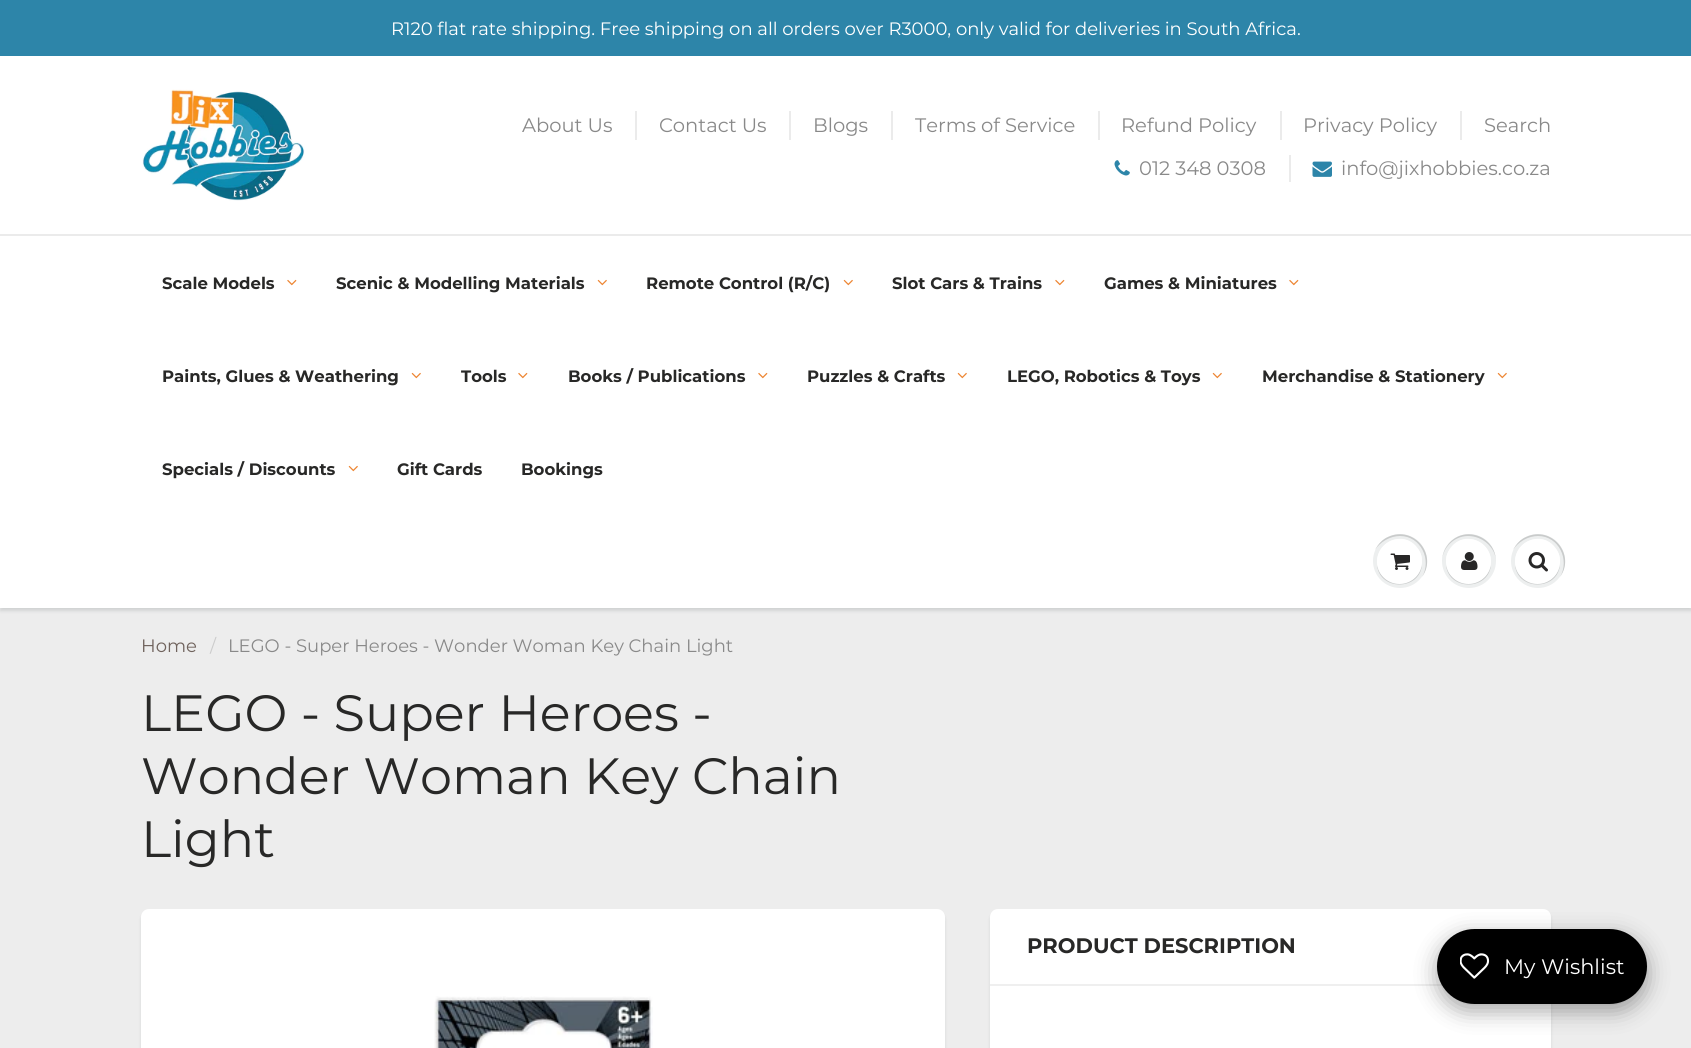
import math
import cairo

surface = cairo.ImageSurface(cairo.Format.RGB24, 1691, 1048)
ctx = cairo.Context(surface)
options = cairo.FontOptions()
options.set_hint_metrics(cairo.HintMetrics.OFF)
options.set_hint_style(cairo.HintStyle.NONE)
ctx.set_font_options(options)
ctx.set_miter_limit(4)


def ink(r, g, b):
    ctx.set_source_rgb(r / 255, g / 255, b / 255)


def write(x, y, s, family, size, color, bold=False, italic=False):
    ctx.select_font_face(family, cairo.FontSlant.ITALIC if italic else cairo.FontSlant.NORMAL, cairo.FontWeight.BOLD if bold else cairo.FontWeight.NORMAL)
    ctx.set_font_size(size)
    ink(*color)
    ctx.move_to(x, y)
    ctx.show_text(s)


def block(x, y, w, h, *color):
    ink(*color)
    ctx.rectangle(x, y, w, h)
    ctx.fill()


def round_path(x, y, w, h, r):
    ctx.new_sub_path()
    for i, (u, v) in enumerate([(x + w - r, y + h - r), (x + r, y + h - r), (x + r, y + r), (x + w - r, y + r)]):
        ctx.arc(u, v, r, i * math.pi / 2, (i + 1) * math.pi / 2)
    ctx.close_path()


def blur_box(x, y, w, h, r, blur, alpha):
    ctx.push_group_with_content(cairo.Content.ALPHA)
    ctx.set_operator(cairo.Operator.SOURCE)
    for i in range(15, -16, -2):
        e = blur * i / 6
        if min(w, h) + 2 * e > 0:
            ctx.set_source_rgba(0, 0, 0, alpha * math.erfc((i - 1) / 8.5) / 2)
            round_path(x - e, y - e, w + 2 * e, h + 2 * e, max(0, min(r + e + blur * .6, min(w, h) / 2 + e)))
            ctx.fill()
    ctx.mask(ctx.pop_group())


def paste(path, x, y, w, h):
    ctx.save()
    ctx.set_source_surface(cairo.ImageSurface.create_from_png(path), x, y)
    ctx.rectangle(x, y, w, h)
    ctx.fill()
    ctx.restore()


s1 = dict(family="Montserrat", size=18, color=(255, 255, 255))
s2 = dict(family="Montserrat", size=19.5, color=(137, 137, 137))
s3 = dict(family="Montserrat", size=16.5, color=(40, 40, 39), bold=True)
s4 = dict(family="Montserrat", size=18, color=(112, 99, 93))
s5 = dict(family="Montserrat", size=18, color=(204, 204, 204))
s6 = dict(family="Montserrat", size=18, color=(137, 137, 137))
s7 = dict(family="Montserrat", size=51, color=(40, 40, 39))
s8 = dict(family="Montserrat", size=21, color=(40, 40, 39), bold=True)
s9 = dict(family="Montserrat", size=21, color=(255, 255, 255))

ink(255, 255, 255)
ctx.paint()
block(0, 0, 1691, 56, 45, 133, 169)
write(391, 35, "R120 flat rate shipping. Free shipping on all orders over R3000, only valid for deliveries in South Africa.", **s1)
paste("pic1.png", 142, 89, 163, 112)
write(522, 132, "About Us", **s2)
block(635, 111, 2, 29, 235, 235, 235)
write(659, 132, "Contact Us", **s2)
block(789, 111, 2, 29, 235, 235, 235)
write(813, 132, "Blogs", **s2)
block(891, 111, 2, 29, 235, 235, 235)
write(915, 132, "Terms of Service", **s2)
block(1098, 111, 2, 29, 235, 235, 235)
write(1121, 132, "Refund Policy", **s2)
block(1280, 111, 2, 29, 235, 235, 235)
write(1303, 132, "Privacy Policy", **s2)
block(1460, 111, 2, 29, 235, 235, 235)
write(1484, 132, "Search", **s2)
paste("pic2.png", 1114, 160, 16, 16)
write(1139, 175, "012 348 0308", **s2)
block(1289, 155, 2, 27, 235, 235, 235)
paste("pic3.png", 1312, 161, 20, 16)
write(1341, 175, "info@jixhobbies.co.za", **s2)
block(0, 608, 1691, 440, 237, 237, 237)
ink(11, 25, 28)
blur_box(0, 237, 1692, 374, 0, 1.5, 0.12)
block(0, 236, 1691, 372, 255, 255, 255)
block(0, 234, 1691, 2, 235, 235, 235)
write(162, 289, "Scale Models", **s3)
paste("pic4.png", 287, 279, 10, 7)
write(336, 289, "Scenic & Modelling Materials", **s3)
paste("pic5.png", 597, 279, 10, 7)
write(646, 289, "Remote Control (R/C)", **s3)
paste("pic5.png", 843, 279, 10, 7)
write(892, 289, "Slot Cars & Trains", **s3)
paste("pic4.png", 1055, 279, 10, 7)
write(1104, 289, "Games & Miniatures", **s3)
paste("pic4.png", 1289, 279, 10, 7)
write(162, 382, "Paints, Glues & Weathering", **s3)
paste("pic5.png", 411, 372, 10, 7)
write(461, 382, "Tools", **s3)
paste("pic4.png", 518, 372, 10, 7)
write(568, 382, "Books / Publications", **s3)
paste("pic4.png", 758, 372, 10, 7)
write(807, 382, "Puzzles & Crafts", **s3)
paste("pic5.png", 957, 372, 10, 7)
write(1007, 382, "LEGO, Robotics & Toys", **s3)
paste("pic5.png", 1212, 372, 10, 7)
write(1262, 382, "Merchandise & Stationery", **s3)
paste("pic5.png", 1497, 372, 10, 7)
write(162, 475, "Specials / Discounts", **s3)
paste("pic5.png", 348, 465, 10, 7)
write(397, 475, "Gift Cards", **s3)
write(521, 475, "Bookings", **s3)
ink(237, 239, 239)
ctx.new_path()
ctx.arc(1400, 561, 27, 0, 2 * math.pi)
ctx.fill()
ink(201, 203, 203)
ctx.new_path()
ctx.move_to(1400, 536)
ctx.curve_to(1421, 536, 1432, 560, 1422, 577)
ctx.curve_to(1438, 555, 1414, 525, 1388, 537)
ctx.curve_to(1383, 539, 1378, 544, 1375, 550)
ctx.curve_to(1380, 542, 1390, 536, 1400, 536)
ctx.close_path()
ctx.fill()
ctx.new_path()
ctx.move_to(1377, 562)
ctx.curve_to(1376, 592, 1423, 592, 1422, 562)
ctx.curve_to(1421, 590, 1378, 590, 1377, 562)
ctx.close_path()
ctx.fill()
ink(255, 255, 255)
ctx.arc(1399.5, 561.5, 22.5, 0, 2 * math.pi)
ctx.fill()
ctx.new_path()
ctx.move_to(1400, 540)
ctx.curve_to(1416, 540, 1423, 554, 1421, 567)
ctx.curve_to(1423, 561, 1422, 554, 1418, 549)
ctx.curve_to(1403, 526, 1369, 546, 1379, 570)
ctx.curve_to(1375, 557, 1382, 540, 1400, 540)
ctx.close_path()
ctx.fill()
paste("pic6.png", 1390, 553, 20, 17)
ink(237, 239, 239)
ctx.arc(1469, 561, 27, 0, 2 * math.pi)
ctx.fill()
ink(201, 203, 203)
ctx.new_path()
ctx.move_to(1468, 536)
ctx.curve_to(1483, 536, 1496, 548, 1496, 562)
ctx.curve_to(1496, 535, 1462, 524, 1447, 546)
ctx.curve_to(1444, 550, 1442, 556, 1442, 562)
ctx.curve_to(1442, 548, 1454, 536, 1468, 536)
ctx.close_path()
ctx.move_to(1446, 562)
ctx.curve_to(1445, 592, 1492, 592, 1491, 562)
ctx.curve_to(1490, 590, 1447, 590, 1446, 562)
ctx.close_path()
ctx.fill()
ink(255, 255, 255)
ctx.arc(1468.5, 561.5, 22.5, 0, 2 * math.pi)
ctx.fill()
ctx.new_path()
ctx.move_to(1468, 540)
ctx.curve_to(1486, 540, 1493, 557, 1489, 570)
ctx.curve_to(1499, 546, 1465, 526, 1450, 549)
ctx.curve_to(1446, 554, 1445, 561, 1447, 567)
ctx.curve_to(1445, 554, 1452, 540, 1468, 540)
ctx.close_path()
ctx.fill()
paste("pic7.png", 1461, 552, 17, 18)
ink(237, 239, 239)
ctx.arc(1538, 561, 27, 0, 2 * math.pi)
ctx.fill()
ink(201, 203, 203)
ctx.new_path()
ctx.move_to(1538, 536)
ctx.curve_to(1559, 536, 1570, 560, 1560, 577)
ctx.curve_to(1576, 555, 1552, 525, 1526, 537)
ctx.curve_to(1521, 539, 1516, 544, 1513, 550)
ctx.curve_to(1518, 542, 1528, 536, 1538, 536)
ctx.close_path()
ctx.fill()
ctx.new_path()
ctx.move_to(1515, 562)
ctx.curve_to(1514, 592, 1561, 592, 1560, 562)
ctx.curve_to(1559, 590, 1516, 590, 1515, 562)
ctx.close_path()
ctx.fill()
ink(255, 255, 255)
ctx.arc(1537.5, 561.5, 22.5, 0, 2 * math.pi)
ctx.fill()
ctx.new_path()
ctx.move_to(1538, 540)
ctx.curve_to(1554, 540, 1561, 554, 1559, 567)
ctx.curve_to(1561, 561, 1560, 554, 1556, 549)
ctx.curve_to(1541, 526, 1507, 546, 1517, 570)
ctx.curve_to(1513, 557, 1520, 540, 1538, 540)
ctx.close_path()
ctx.fill()
paste("pic8.png", 1528, 552, 20, 20)
write(141, 652, "Home", **s4)
write(210, 652, "/", **s5)
write(228, 652, "LEGO - Super Heroes - Wonder Woman Key Chain Light", **s6)
write(141, 731, "LEGO - Super Heroes -", **s7)
write(141, 794, "Wonder Woman Key Chain", **s7)
write(141, 857, "Light", **s7)
ink(11, 25, 28)
blur_box(141, 912, 804, 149, 8, 1.5, 0.1)
ink(255, 255, 255)
round_path(141, 909, 804, 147, 8)
ctx.fill()
paste("pic9.png", 434, 996, 219, 52)
ink(11, 25, 28)
blur_box(990, 912, 561, 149, 8, 1.5, 0.1)
ink(255, 255, 255)
round_path(990, 909, 561, 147, 8)
ctx.fill()
block(990, 984, 453, 2, 239, 239, 239)
write(1027, 953, "PRODUCT DESCRIPTION", **s8)
ink(0, 0, 0)
blur_box(1437, 936, 210, 75, 37.5, 11, 0.35)
ink(0, 0, 0)
round_path(1437, 929, 210, 75, 37.5)
ctx.fill()
paste("pic10.png", 1460, 953, 30, 26)
write(1504, 974, "My Wishlist", **s9)
surface.write_to_png("screenshot.png")
